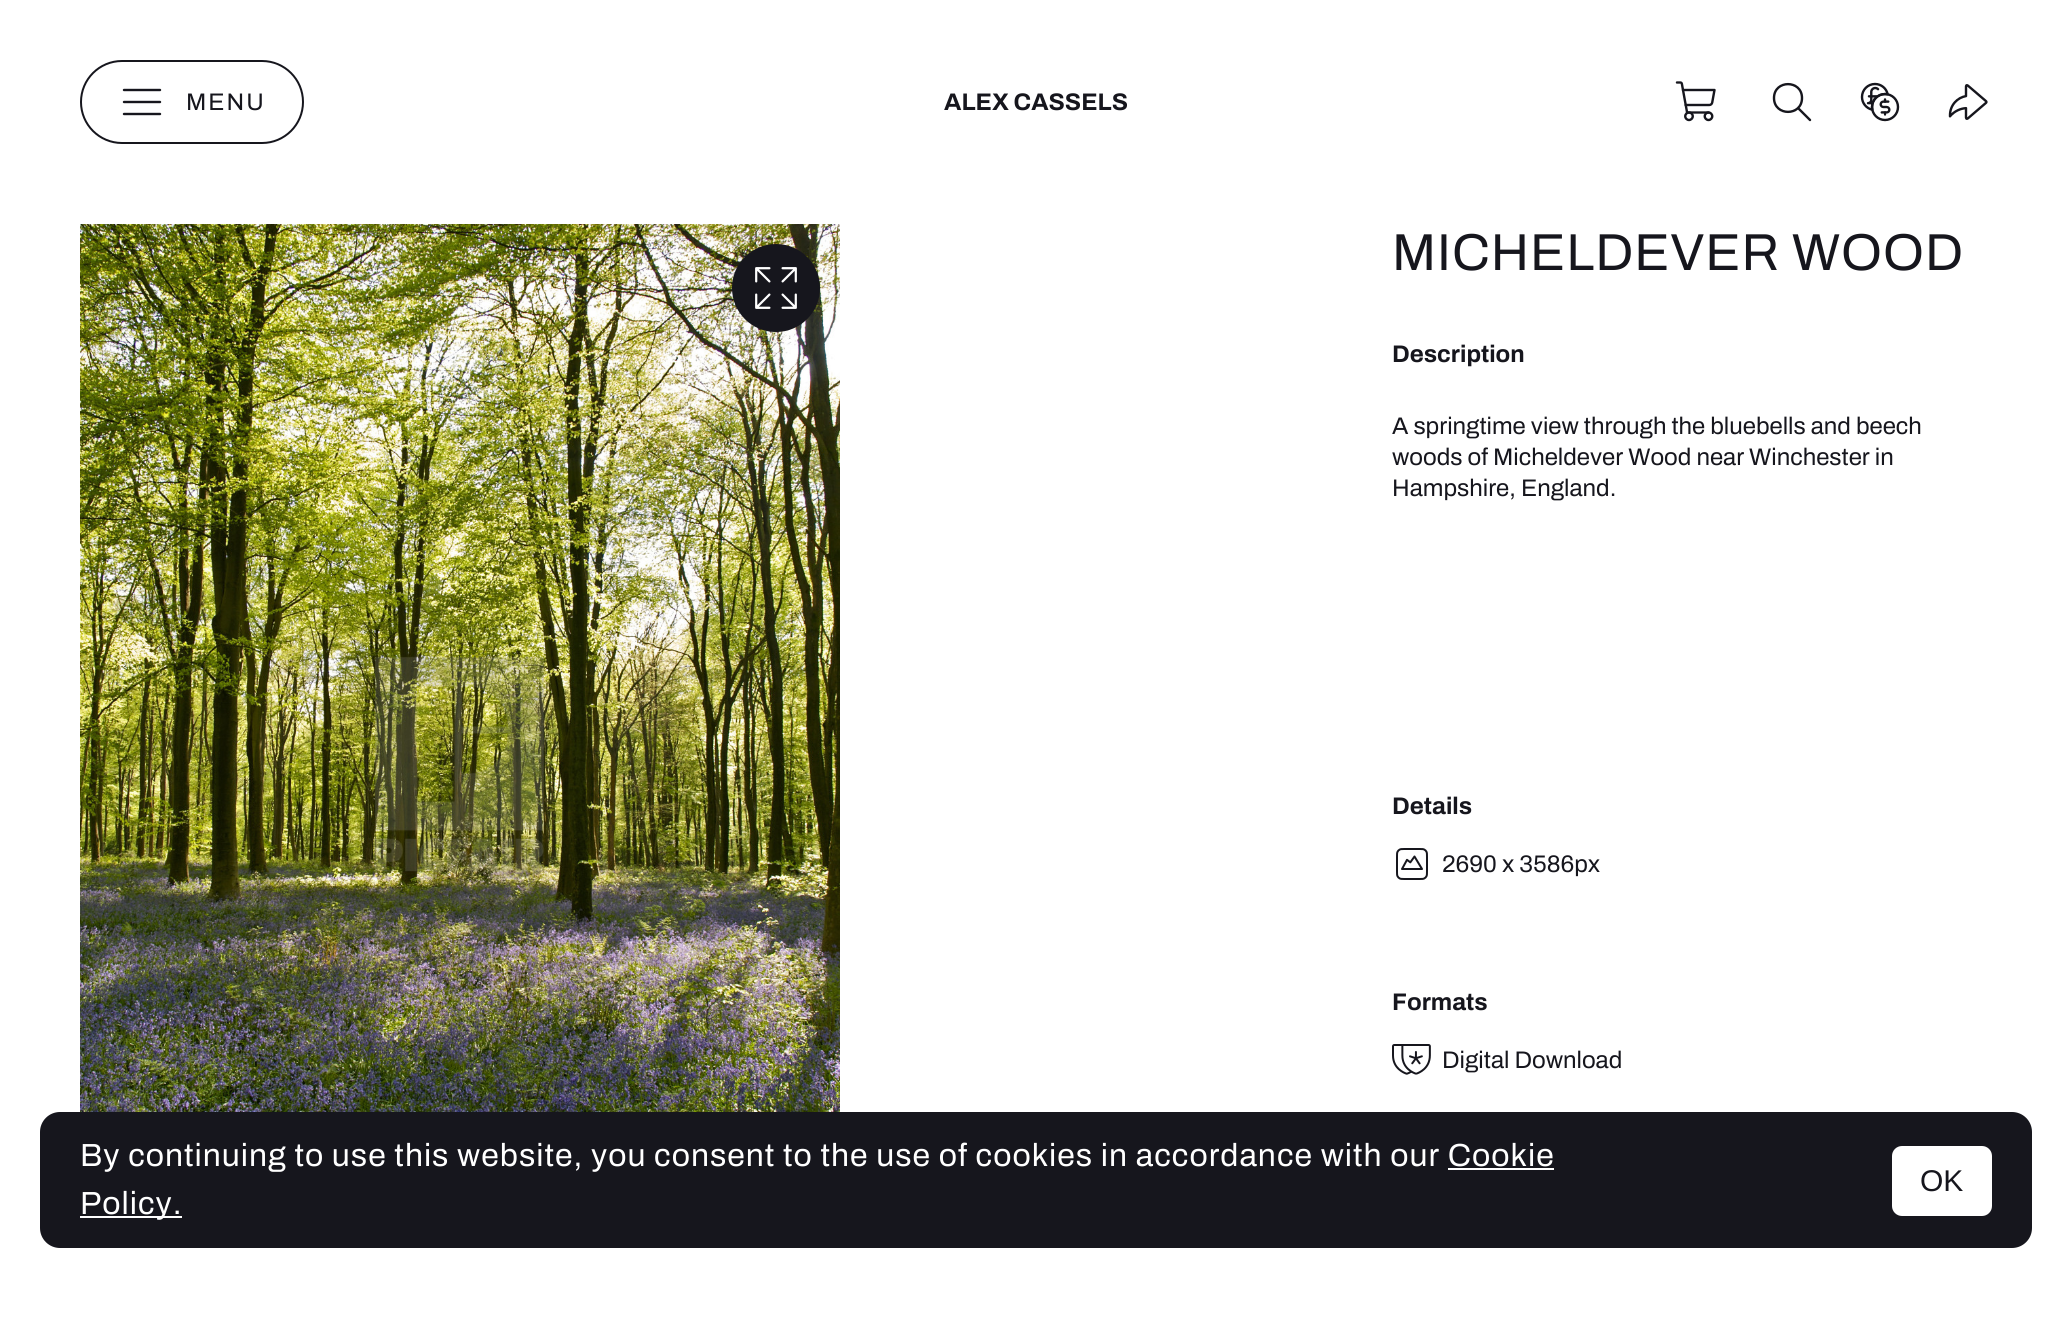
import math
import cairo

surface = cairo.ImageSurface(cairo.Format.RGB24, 2072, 1317)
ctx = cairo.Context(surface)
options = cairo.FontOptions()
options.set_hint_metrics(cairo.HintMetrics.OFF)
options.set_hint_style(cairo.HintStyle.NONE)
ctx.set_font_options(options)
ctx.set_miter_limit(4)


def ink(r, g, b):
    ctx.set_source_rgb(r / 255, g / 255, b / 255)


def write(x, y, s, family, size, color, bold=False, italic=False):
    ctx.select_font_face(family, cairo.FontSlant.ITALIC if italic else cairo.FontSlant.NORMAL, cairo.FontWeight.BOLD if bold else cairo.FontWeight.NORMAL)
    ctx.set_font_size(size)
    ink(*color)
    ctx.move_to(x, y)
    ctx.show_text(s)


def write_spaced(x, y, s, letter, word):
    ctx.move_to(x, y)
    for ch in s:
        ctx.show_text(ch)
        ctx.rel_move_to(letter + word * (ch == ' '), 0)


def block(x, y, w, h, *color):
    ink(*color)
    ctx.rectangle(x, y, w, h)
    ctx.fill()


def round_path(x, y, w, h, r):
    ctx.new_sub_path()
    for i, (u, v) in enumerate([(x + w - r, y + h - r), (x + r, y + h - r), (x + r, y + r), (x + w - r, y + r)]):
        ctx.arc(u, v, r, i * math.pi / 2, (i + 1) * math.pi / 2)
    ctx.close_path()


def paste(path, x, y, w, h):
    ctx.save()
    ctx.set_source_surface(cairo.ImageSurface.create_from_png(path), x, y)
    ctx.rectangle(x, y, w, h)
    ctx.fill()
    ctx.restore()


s1 = dict(family="Archivo", size=24, color=(22, 22, 29), bold=True)
s2 = dict(family="Archivo", size=24, color=(22, 22, 29))
s3 = dict(family="Liberation Sans", size=30, color=(22, 22, 29))

ink(255, 255, 255)
ctx.paint()
round_path(81, 61, 222, 82, 41)
ink(22, 22, 29)
ctx.stroke()
ctx.new_path()
ctx.move_to(124, 102)
ctx.line_to(160, 102)
ctx.move_to(124, 90)
ctx.line_to(160, 90)
ctx.move_to(124, 114)
ctx.line_to(160, 114)
ctx.set_line_width(2.4)
ctx.set_line_cap(cairo.LineCap.ROUND)
ctx.set_line_join(cairo.LineJoin.ROUND)
ctx.stroke()
ctx.select_font_face("Archivo")
ctx.set_font_size(24)
write_spaced(186, 110, "MENU", 2, 0)
write(944, 110, "ALEX CASSELS", **s1)
paste("pic1.png", 1675, 81, 41, 41)
ctx.new_path()
ctx.move_to(1810, 120)
ctx.line_to(1798, 108)
ctx.move_to(1802, 98)
ctx.curve_to(1802, 116.5, 1774, 116.5, 1774, 98)
ctx.curve_to(1774, 79.5, 1802, 79.5, 1802, 98)
ctx.close_path()
ctx.stroke()
paste("pic2.png", 1860, 82, 40, 40)
paste("pic3.png", 1948, 84, 40, 36)
paste("pic4.png", 80, 224, 760, 888)
ctx.arc(776, 288, 44, 0, 2 * math.pi)
ctx.fill()
paste("pic5.png", 755, 267, 42, 42)
ctx.select_font_face("Archivo")
ctx.set_font_size(52)
write_spaced(1392, 270, "MICHELDEVER WOOD", 1, 0)
write(1392, 362, "Description", **s1)
write(1392, 434, "A springtime view through the bluebells and beech", **s2)
write(1392, 465, "woods of Micheldever Wood near Winchester in", **s2)
write(1392, 496, "Hampshire, England.", **s2)
write(1392, 814, "Details", **s1)
paste("pic6.png", 1396, 848, 32, 32)
write(1442, 872, "2690 x 3586px", **s2)
write(1392, 1010, "Formats", **s1)
paste("pic7.png", 1392, 1044, 39, 31)
write(1442, 1068, "Digital Download", **s2)
round_path(40, 1112, 1992, 136, 20)
ctx.fill()
ctx.set_font_size(32)
ink(255, 255, 255)
write_spaced(80, 1166, "By continuing to use this website, you consent to the use of cookies in accordance with our Cookie", 1, 0)
block(80, 1216, 102, 2, 255, 255, 255)
write_spaced(80, 1214, "Policy.", 1, 0)
block(1448, 1168, 106, 2, 255, 255, 255)
round_path(1892, 1146, 100, 70, 10)
ctx.fill()
write(1920, 1191, "OK", **s3)
surface.write_to_png("screenshot.png")
